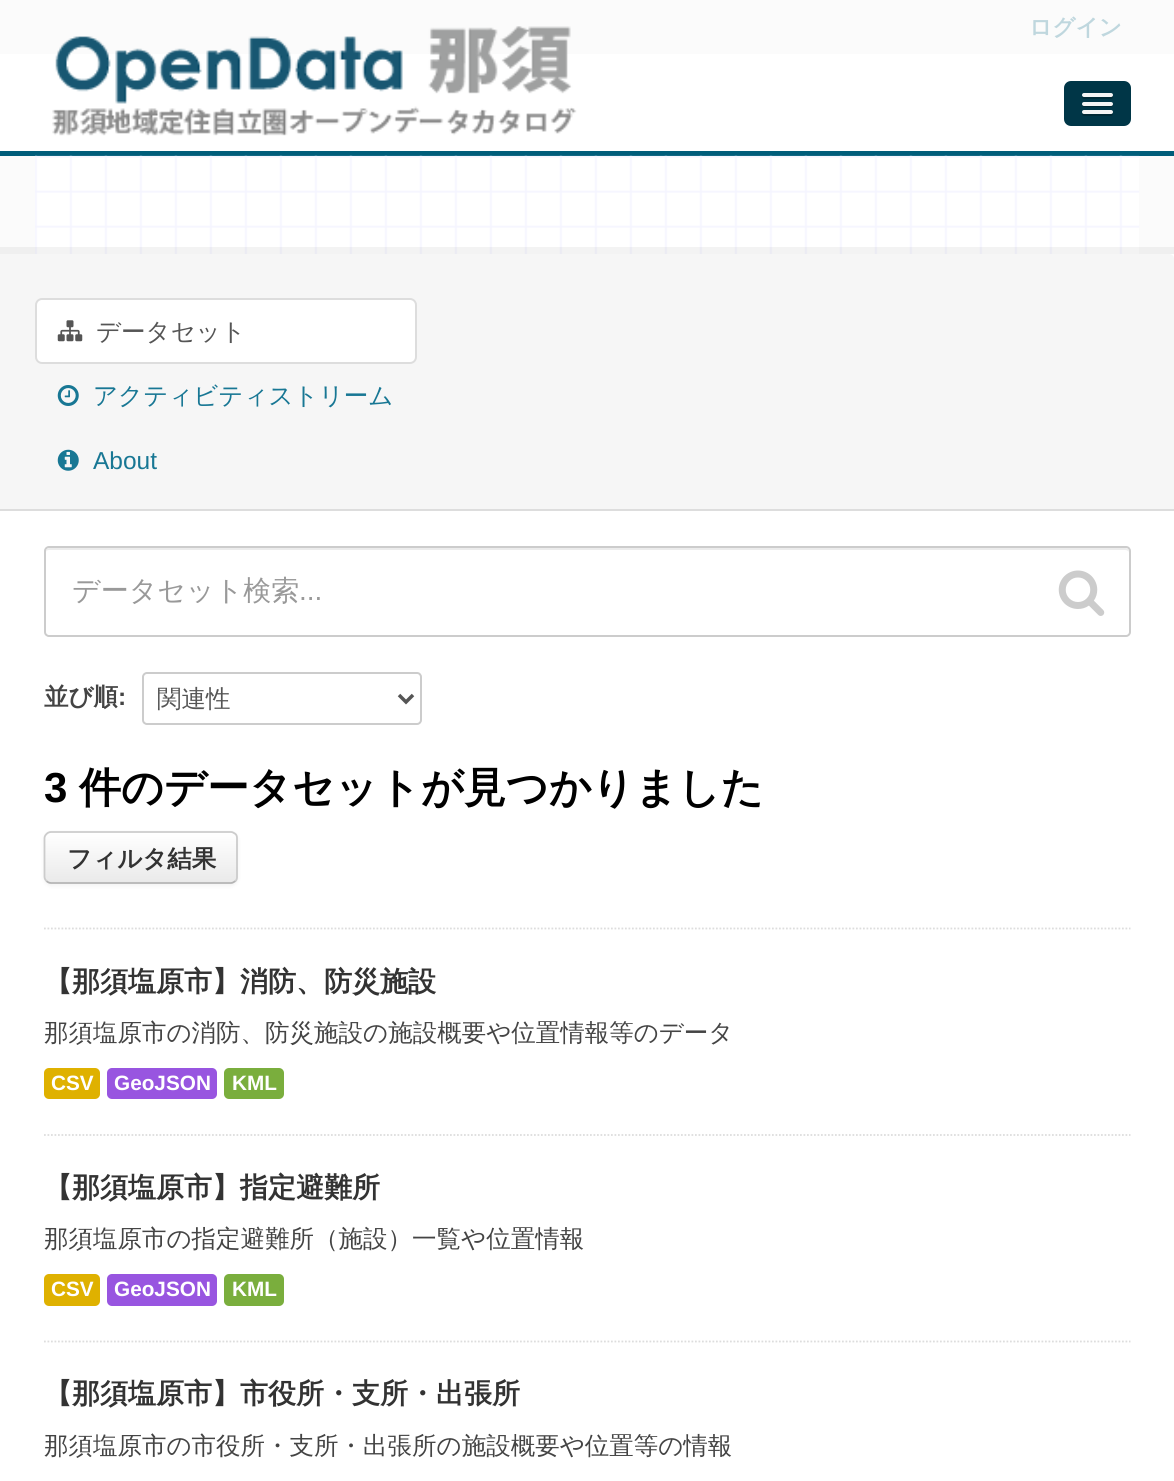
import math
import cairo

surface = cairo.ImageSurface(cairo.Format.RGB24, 1174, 1481)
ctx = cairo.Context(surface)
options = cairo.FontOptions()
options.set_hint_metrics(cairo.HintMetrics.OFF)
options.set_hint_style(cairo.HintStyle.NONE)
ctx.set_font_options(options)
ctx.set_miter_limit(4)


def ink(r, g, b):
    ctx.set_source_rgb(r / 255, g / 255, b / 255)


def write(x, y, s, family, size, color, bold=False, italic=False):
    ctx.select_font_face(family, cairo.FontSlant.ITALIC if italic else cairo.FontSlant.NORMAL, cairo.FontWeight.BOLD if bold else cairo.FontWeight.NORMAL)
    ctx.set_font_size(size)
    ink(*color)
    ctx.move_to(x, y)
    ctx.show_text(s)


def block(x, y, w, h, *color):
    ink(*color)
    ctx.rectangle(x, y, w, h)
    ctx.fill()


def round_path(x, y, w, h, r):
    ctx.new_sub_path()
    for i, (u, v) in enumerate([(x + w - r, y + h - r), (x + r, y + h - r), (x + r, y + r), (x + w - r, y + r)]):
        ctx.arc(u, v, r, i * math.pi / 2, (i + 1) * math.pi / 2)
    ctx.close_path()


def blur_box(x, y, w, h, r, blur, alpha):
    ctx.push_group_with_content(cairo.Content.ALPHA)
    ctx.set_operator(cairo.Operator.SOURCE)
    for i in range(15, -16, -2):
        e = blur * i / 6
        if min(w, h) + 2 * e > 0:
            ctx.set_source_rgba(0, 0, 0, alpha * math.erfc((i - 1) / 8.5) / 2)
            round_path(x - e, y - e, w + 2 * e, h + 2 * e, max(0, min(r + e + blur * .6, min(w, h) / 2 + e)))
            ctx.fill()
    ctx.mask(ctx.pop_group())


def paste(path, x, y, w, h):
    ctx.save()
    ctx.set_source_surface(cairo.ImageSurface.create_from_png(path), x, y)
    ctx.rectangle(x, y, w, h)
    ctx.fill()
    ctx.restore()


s1 = dict(family="WenQuanYi Zen Hei", size=22.75, color=(191, 215, 222), bold=True)
s2 = dict(family="WenQuanYi Zen Hei Medium", size=24.5, color=(85, 85, 85))
s3 = dict(family="WenQuanYi Zen Hei Medium", size=24.5, color=(24, 119, 148))
s4 = dict(family="Liberation Sans", size=24.5, color=(24, 119, 148))
s5 = dict(family="WenQuanYi Zen Hei Medium", size=28, color=(153, 153, 153))
s6 = dict(family="Liberation Sans", size=28, color=(153, 153, 153))
s7 = dict(family="WenQuanYi Zen Hei", size=24.5, color=(68, 68, 68), bold=True)
s8 = dict(family="Liberation Sans", size=24.5, color=(68, 68, 68), bold=True)
s9 = dict(family="Liberation Sans", size=42, color=(0, 0, 0), bold=True)
s10 = dict(family="WenQuanYi Zen Hei", size=42, color=(0, 0, 0), bold=True)
s11 = dict(family="WenQuanYi Zen Hei", size=24.5, color=(51, 51, 51), bold=True)
s12 = dict(family="WenQuanYi Zen Hei", size=28, color=(51, 51, 51), bold=True)
s13 = dict(family="WenQuanYi Zen Hei Medium", size=24.5, color=(68, 68, 68))
s14 = dict(family="Liberation Sans", size=20.75, color=(255, 255, 255), bold=True)

ink(251, 251, 251)
ctx.paint()
write(1029, 35, "ログイン", **s1)
block(0, 54, 1174, 97, 255, 255, 255)
block(0, 151, 1174, 5, 0, 93, 122)
paste("pic1.png", 52, 26, 525, 110)
ink(0, 54, 71)
round_path(1064, 81, 67, 45, 7)
ctx.fill()
ink(0, 41, 53)
ctx.new_path()
ctx.move_to(1082.5, 96)
ctx.curve_to(1080, 100, 1088, 99, 1088.5, 99)
ctx.line_to(1106.5, 99)
ctx.curve_to(1107.5, 99, 1112.5, 100, 1113, 97.5)
ctx.curve_to(1113, 97, 1113, 96, 1112.5, 95.5)
ctx.line_to(1111.5, 96)
ctx.curve_to(1109, 96.5, 1083, 96.5, 1082.5, 96)
ctx.close_path()
ctx.fill()
ink(245, 245, 245)
round_path(1082, 93, 31, 4, 2)
ctx.fill()
ink(0, 41, 53)
ctx.new_path()
ctx.move_to(1082, 104.5)
ctx.curve_to(1081, 108, 1087.5, 107, 1088.5, 107)
ctx.line_to(1106.5, 107)
ctx.curve_to(1107.5, 107, 1114.5, 108, 1113, 104)
ctx.line_to(1111.5, 105)
ctx.line_to(1083, 105)
ctx.close_path()
ctx.fill()
ink(245, 245, 245)
round_path(1082, 102, 31, 4, 2)
ctx.fill()
ink(0, 41, 53)
ctx.new_path()
ctx.move_to(1082, 113.5)
ctx.curve_to(1081, 117, 1087.5, 116, 1088.5, 116)
ctx.line_to(1106.5, 116)
ctx.curve_to(1107, 116, 1115, 117, 1112.5, 113)
ctx.line_to(1111.5, 113.5)
ctx.line_to(1083, 113.5)
ctx.close_path()
ctx.fill()
ink(245, 245, 245)
round_path(1082, 110, 31, 4, 2)
ctx.fill()
block(35, 156, 1104, 98, 255, 255, 255)
paste("pic2.png", 35, 155, 1105, 99)
ctx.rectangle(-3.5, 250.5, 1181, 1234)
ctx.set_source_rgba(0, 0, 0, 0.05)
ctx.set_line_width(7)
ctx.stroke()
block(0, 254, 1174, 1227, 255, 255, 255)
ink(246, 246, 246)
ctx.new_path()
ctx.move_to(0, 254)
ctx.line_to(1169, 254)
ctx.curve_to(1172, 254, 1174, 256, 1174, 259)
ctx.line_to(1174, 511)
ctx.line_to(0, 511)
ctx.close_path()
ctx.fill()
block(0, 509, 1174, 2, 221, 221, 221)
ink(255, 255, 255)
round_path(36, 299, 380, 64, 6)
ctx.fill_preserve()
ink(221, 221, 221)
ctx.set_line_width(2)
ctx.stroke()
paste("pic3.png", 57, 320, 26, 22)
write(96, 340, "データセット", **s2)
paste("pic4.png", 57, 385, 22, 21)
write(93, 404, "アクティビティストリーム", **s3)
paste("pic5.png", 57, 449, 22, 22)
write(93, 469, "About", **s4)
ctx.new_path()
ctx.move_to(44, 928.5)
ctx.line_to(1130.5, 928.5)
ink(221, 221, 221)
ctx.set_line_width(1.8)
ctx.set_dash([1.75, 1.75])
ctx.stroke()
ink(236, 236, 236)
ctx.new_path()
ctx.move_to(49, 550)
ctx.line_to(1125, 550)
ctx.curve_to(1127, 550, 1129, 551, 1129, 553)
ctx.curve_to(1129, 550, 1128, 548, 1125, 548)
ctx.line_to(50, 548)
ctx.curve_to(47, 548, 46, 550, 46, 553)
ctx.curve_to(46, 551, 47, 550, 49, 550)
ctx.close_path()
ctx.fill()
round_path(45, 547, 1085, 89, 4)
ink(204, 204, 204)
ctx.set_line_width(2)
ctx.set_dash([])
ctx.stroke()
write(72, 600, "データセット検索", **s5)
write(299, 600, "...", **s6)
paste("pic6.png", 1058, 570, 47, 46)
write(44, 705, "並び順", **s7)
write(118, 705, ":", **s8)
round_path(143, 673, 278, 51, 4)
ink(204, 204, 204)
ctx.stroke()
ctx.new_path()
ctx.move_to(399, 695)
ctx.line_to(406, 702)
ctx.line_to(413, 695)
ink(85, 85, 85)
ctx.set_line_width(3.5)
ctx.stroke()
write(157, 707, "関連性", **s2)
write(44, 802, "3", **s9)
write(79, 802, "件のデータセットが見つかりました", **s10)
ink(0, 0, 0)
blur_box(44, 833, 194, 53, 7, 2, 0.05)
ink(247, 247, 247)
round_path(44, 831, 194, 53, 7)
ctx.fill()
ctx.save()
round_path(44, 831, 194, 53, 7)
ctx.clip()
gradient = cairo.LinearGradient(141, 833, 141, 882)
gradient.add_color_stop_rgba(0, 1, 1, 1, 1)
gradient.add_color_stop_rgba(1, 0.918, 0.918, 0.918, 1)
ctx.set_source(gradient)
ctx.rectangle(44, 833, 194, 49)
ctx.fill()
ctx.restore()
ctx.new_path()
ctx.move_to(235.5, 881)
ctx.curve_to(234, 882, 232.5, 883, 231, 883)
ctx.line_to(51, 883)
ctx.curve_to(49, 883, 47.5, 882, 46.5, 881)
ink(179, 179, 179)
ctx.set_line_width(1.8)
ctx.stroke()
ctx.new_path()
ctx.move_to(46.5, 881)
ctx.curve_to(45.5, 880, 44.5, 878.5, 44.5, 877)
ctx.line_to(44.5, 838)
ctx.curve_to(44.5, 836.5, 45.5, 835, 46.5, 834)
ctx.curve_to(47.5, 833, 49, 832, 51, 832)
ctx.line_to(231, 832)
ctx.curve_to(232.5, 832, 234, 833, 235.5, 834)
ctx.curve_to(236.5, 835, 237, 836.5, 237, 838)
ctx.line_to(237, 877)
ctx.curve_to(237, 878.5, 236.5, 880, 235.5, 881)
ink(204, 204, 204)
ctx.stroke()
write(67, 867, "フィルタ結果", **s11)
ctx.new_path()
ctx.move_to(44, 1135)
ctx.line_to(1130.5, 1135)
ink(221, 221, 221)
ctx.set_dash([1.75, 1.75])
ctx.stroke()
write(44, 991, "【那須塩原市】消防、防災施設", **s12)
write(44, 1041, "那須塩原市の消防、防災施設の施設概要や位置情報等のデータ", **s13)
ink(223, 177, 0)
round_path(44, 1068, 56, 31, 5)
ctx.fill()
write(51, 1090, "CSV", **s14)
ink(152, 85, 224)
round_path(107, 1068, 110, 31, 5)
ctx.fill()
write(114, 1090, "GeoJSON", **s14)
ink(122, 174, 61)
round_path(224, 1068, 60, 31, 5)
ctx.fill()
write(232, 1090, "KML", **s14)
ctx.new_path()
ctx.move_to(44, 1341.5)
ctx.line_to(1130.5, 1341.5)
ink(221, 221, 221)
ctx.stroke()
write(44, 1197, "【那須塩原市】指定避難所", **s12)
write(44, 1247, "那須塩原市の指定避難所（施設）一覧や位置情報", **s13)
ink(223, 177, 0)
round_path(44, 1274, 56, 32, 5)
ctx.fill()
write(51, 1296, "CSV", **s14)
ink(152, 85, 224)
round_path(107, 1274, 110, 32, 5)
ctx.fill()
write(114, 1296, "GeoJSON", **s14)
ink(122, 174, 61)
round_path(224, 1274, 60, 32, 5)
ctx.fill()
write(232, 1296, "KML", **s14)
write(44, 1403, "【那須塩原市】市役所・支所・出張所", **s12)
write(44, 1454, "那須塩原市の市役所・支所・出張所の施設概要や位置等の情報", **s13)
surface.write_to_png("screenshot.png")
